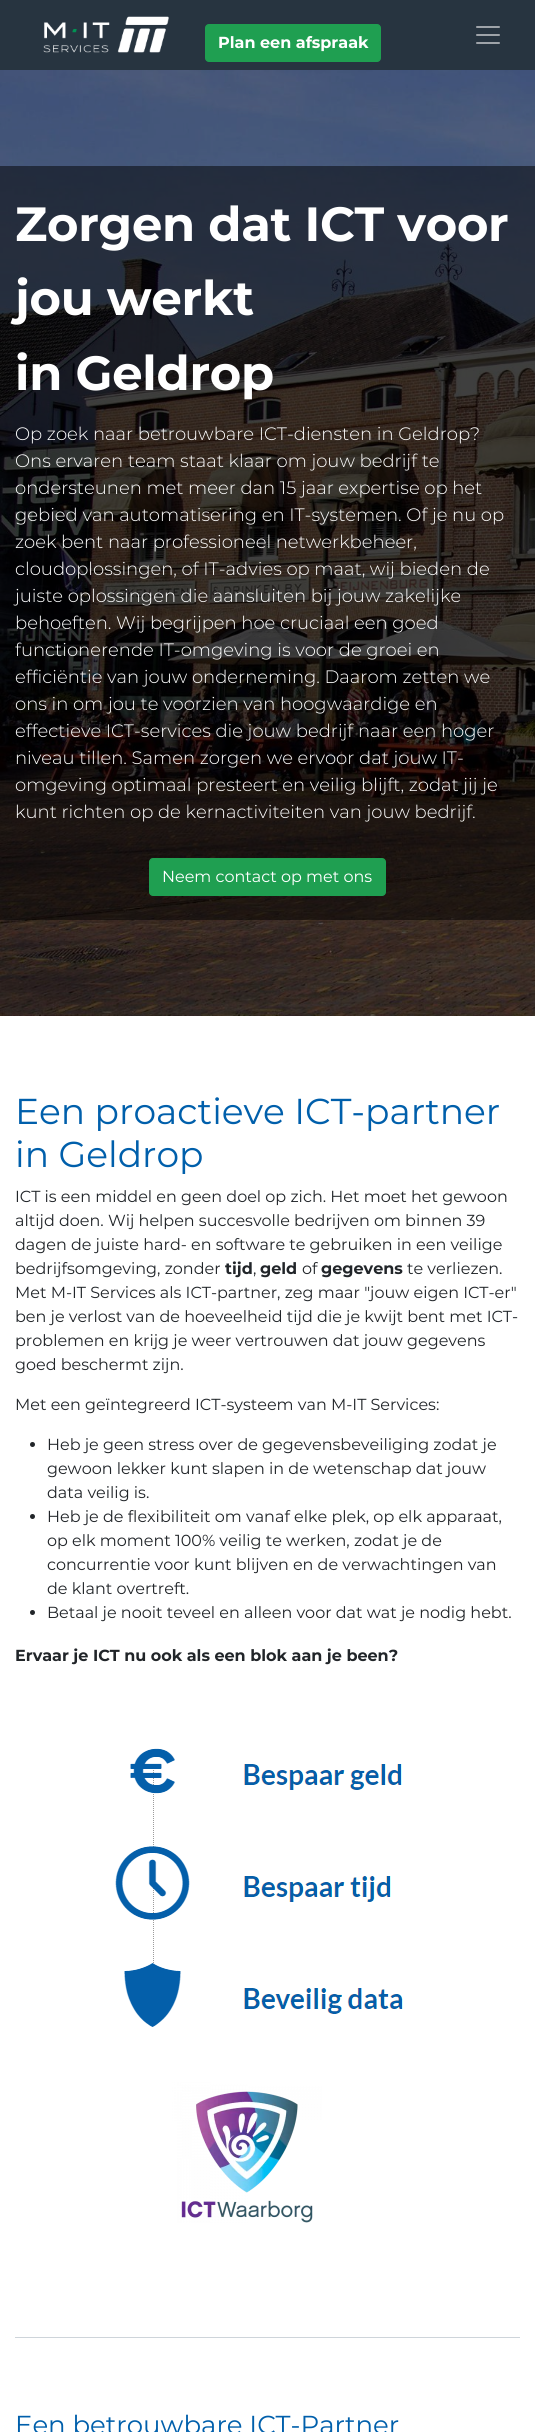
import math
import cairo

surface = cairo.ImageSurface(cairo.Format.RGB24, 535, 2432)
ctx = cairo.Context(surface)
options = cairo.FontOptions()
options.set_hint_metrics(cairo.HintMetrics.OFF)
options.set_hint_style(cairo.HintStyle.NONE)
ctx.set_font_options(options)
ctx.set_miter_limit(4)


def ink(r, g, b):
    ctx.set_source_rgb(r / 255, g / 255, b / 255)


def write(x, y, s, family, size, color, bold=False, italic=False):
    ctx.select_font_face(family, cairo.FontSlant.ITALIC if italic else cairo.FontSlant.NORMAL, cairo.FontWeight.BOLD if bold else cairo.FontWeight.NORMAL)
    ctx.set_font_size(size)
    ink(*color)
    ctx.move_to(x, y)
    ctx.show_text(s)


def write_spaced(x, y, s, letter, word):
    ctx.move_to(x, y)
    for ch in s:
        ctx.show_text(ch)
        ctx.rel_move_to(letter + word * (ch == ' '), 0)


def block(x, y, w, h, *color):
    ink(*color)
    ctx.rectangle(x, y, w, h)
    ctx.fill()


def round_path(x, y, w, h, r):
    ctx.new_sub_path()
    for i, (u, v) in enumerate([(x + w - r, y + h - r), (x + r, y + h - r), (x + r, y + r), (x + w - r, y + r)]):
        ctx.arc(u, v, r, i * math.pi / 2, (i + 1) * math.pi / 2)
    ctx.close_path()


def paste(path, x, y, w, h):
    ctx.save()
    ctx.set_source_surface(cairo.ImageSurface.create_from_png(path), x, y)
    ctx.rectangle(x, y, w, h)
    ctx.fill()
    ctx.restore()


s1 = dict(family="Montserrat", size=16, color=(255, 255, 255), bold=True)
s2 = dict(family="Montserrat Light", size=18, color=(255, 255, 255))
s3 = dict(family="Montserrat", size=16, color=(255, 255, 255))
s4 = dict(family="Montserrat", size=36, color=(0, 95, 171))
s5 = dict(family="Montserrat", size=16, color=(33, 37, 41))
s6 = dict(family="Montserrat", size=16, color=(33, 37, 41), bold=True)
s7 = dict(family="Montserrat", size=26, color=(0, 95, 171))

ink(255, 255, 255)
ctx.paint()
block(0, 0, 535, 70, 39, 52, 64)
paste("pic1.png", 43, 16, 126, 37)
ink(31, 159, 81)
round_path(205.5, 24.5, 175, 37, 3.5)
ctx.fill_preserve()
ctx.set_line_width(1)
ctx.stroke()
write(218, 48, "Plan een afspraak", **s1)
paste("pic2.png", 476, 26, 24, 18)
paste("pic3.png", 0, 70, 535, 946)
ctx.set_source_rgba(0, 0, 0, 0.5)
ctx.rectangle(0, 166, 535, 754)
ctx.fill()
ctx.set_font_size(48)
ink(255, 255, 255)
write_spaced(15, 241, "Zorgen dat ICT voor", -0.25, 0)
write_spaced(15, 315, "jou werkt", -0.25, 0)
write_spaced(15, 390, "in Geldrop", -0.25, 0)
write(15, 440, "Op zoek naar betrouwbare ICT-diensten in Geldrop?", **s2)
write(15, 467, "Ons ervaren team staat klaar om jouw bedrijf te", **s2)
write(15, 494, "ondersteunen met meer dan 15 jaar expertise op het", **s2)
write(15, 521, "gebied van automatisering en IT-systemen. Of je nu op", **s2)
write(15, 548, "zoek bent naar professioneel netwerkbeheer,", **s2)
write(15, 575, "cloudoplossingen, of IT-advies op maat, wij bieden de", **s2)
write(15, 602, "juiste oplossingen die aansluiten bij jouw zakelijke", **s2)
write(15, 629, "behoeften. Wij begrijpen hoe cruciaal een goed", **s2)
write(15, 656, "functionerende IT-omgeving is voor de groei en", **s2)
write(15, 683, "efficiëntie van jouw onderneming. Daarom zetten we", **s2)
write(15, 710, "ons in om jou te voorzien van hoogwaardige en", **s2)
write(15, 737, "effectieve ICT-services die jouw bedrijf naar een hoger", **s2)
write(15, 764, "niveau tillen. Samen zorgen we ervoor dat jouw IT-", **s2)
write(15, 791, "omgeving optimaal presteert en veilig blijft, zodat jij je", **s2)
write(15, 818, "kunt richten op de kernactiviteiten van jouw bedrijf.", **s2)
ink(31, 159, 81)
round_path(149.5, 858.5, 236, 37, 3.5)
ctx.fill_preserve()
ctx.stroke()
write(162, 882, "Neem contact op met ons", **s3)
write(15, 1124, "Een proactieve ICT-partner", **s4)
write(15, 1167, "in Geldrop", **s4)
write(15, 1202, "ICT is een middel en geen doel op zich. Het moet het gewoon", **s5)
write(15, 1226, "altijd doen. Wij helpen succesvolle bedrijven om binnen 39", **s5)
write(15, 1250, "dagen de juiste hard- en software te gebruiken in een veilige", **s5)
write(15, 1274, "bedrijfsomgeving, zonder", **s5)
write(225, 1274, "tijd", **s6)
write(253, 1274, ",", **s5)
write(260, 1274, "geld", **s6)
write(302, 1274, "of", **s5)
write(321, 1274, "gegevens", **s6)
write(407, 1274, "te verliezen.", **s5)
write(15, 1298, "Met M-IT Services als ICT-partner, zeg maar \"jouw eigen ICT-er\"", **s5)
write(15, 1322, "ben je verlost van de hoeveelheid tijd die je kwijt bent met ICT-", **s5)
write(15, 1346, "problemen en krijg je weer vertrouwen dat jouw gegevens", **s5)
write(15, 1370, "goed beschermt zijn.", **s5)
write(15, 1410, "Met een geïntegreerd ICT-systeem van M-IT Services:", **s5)
ctx.new_path()
ctx.arc(32.5, 1444.5, 2.5, 0, 2 * math.pi)
ctx.fill()
write(47, 1450, "Heb je geen stress over de gegevensbeveiliging zodat je", **s5)
write(47, 1474, "gewoon lekker kunt slapen in de wetenschap dat jouw", **s5)
write(47, 1498, "data veilig is.", **s5)
ctx.new_path()
ctx.arc(32.5, 1516.5, 2.5, 0, 2 * math.pi)
ctx.fill()
write(47, 1522, "Heb je de flexibiliteit om vanaf elke plek, op elk apparaat,", **s5)
write(47, 1546, "op elk moment 100% veilig te werken, zodat je de", **s5)
write(47, 1570, "concurrentie voor kunt blijven en de verwachtingen van", **s5)
write(47, 1594, "de klant overtreft.", **s5)
ctx.new_path()
ctx.arc(32.5, 1612.5, 2.5, 0, 2 * math.pi)
ctx.fill()
write(47, 1618, "Betaal je nooit teveel en alleen voor dat wat je nodig hebt.", **s5)
write(15, 1661, "Ervaar je ICT nu ook als een blok aan je been?", **s6)
paste("pic4.png", 115, 1748, 288, 475)
block(15, 2337, 505, 1, 206, 212, 218)
write(15, 2434, "Een betrouwbare ICT-Partner", **s7)
surface.write_to_png("screenshot.png")
